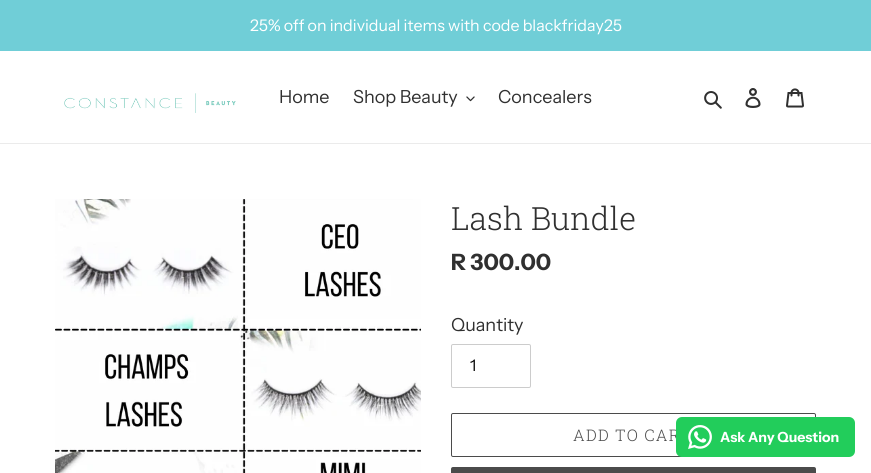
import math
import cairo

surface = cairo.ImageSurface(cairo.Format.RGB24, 871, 473)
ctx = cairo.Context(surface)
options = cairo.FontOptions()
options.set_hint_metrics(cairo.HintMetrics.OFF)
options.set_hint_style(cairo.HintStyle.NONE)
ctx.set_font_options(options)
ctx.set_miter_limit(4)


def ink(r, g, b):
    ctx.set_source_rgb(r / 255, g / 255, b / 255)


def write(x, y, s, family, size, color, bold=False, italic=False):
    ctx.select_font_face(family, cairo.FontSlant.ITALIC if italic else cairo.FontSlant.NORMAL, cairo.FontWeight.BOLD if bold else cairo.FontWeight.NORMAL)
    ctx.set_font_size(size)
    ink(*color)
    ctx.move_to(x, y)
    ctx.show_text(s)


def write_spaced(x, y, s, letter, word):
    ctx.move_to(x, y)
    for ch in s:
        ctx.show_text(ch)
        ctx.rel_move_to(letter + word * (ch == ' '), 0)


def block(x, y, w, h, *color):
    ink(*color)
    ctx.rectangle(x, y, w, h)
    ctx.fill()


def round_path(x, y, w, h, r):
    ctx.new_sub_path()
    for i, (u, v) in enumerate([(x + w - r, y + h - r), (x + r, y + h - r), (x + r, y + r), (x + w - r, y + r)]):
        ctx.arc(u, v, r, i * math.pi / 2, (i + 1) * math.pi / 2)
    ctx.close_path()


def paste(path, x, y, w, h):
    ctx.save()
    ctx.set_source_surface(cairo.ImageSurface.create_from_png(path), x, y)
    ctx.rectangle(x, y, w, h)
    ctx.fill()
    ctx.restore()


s1 = dict(family="Instrument Sans", size=16, color=(255, 255, 255))
s2 = dict(family="Instrument Sans", size=18, color=(48, 48, 48))
s3 = dict(family="Roboto Slab Light", size=32, color=(48, 48, 48))
s4 = dict(family="Instrument Sans", size=22.5, color=(48, 48, 48), bold=True)
s5 = dict(family="Instrument Sans", size=16, color=(0, 0, 0))
s6 = dict(family="Instrument Sans", size=14, color=(255, 255, 255), bold=True)

ink(255, 255, 255)
ctx.paint()
block(0, 0, 871, 51, 112, 206, 215)
write(250, 31, "25% off on individual items with code blackfriday25", **s1)
block(0, 143, 871, 1, 235, 235, 235)
paste("pic1.png", 64, 93, 172, 20)
write(279, 103, "Home", **s2)
write(353, 103, "Shop Beauty", **s2)
paste("pic2.png", 466, 96, 9, 6)
write(498, 103, "Concealers", **s2)
paste("pic3.png", 704, 91, 18, 18)
paste("pic4.png", 745, 88, 16, 20)
paste("pic5.png", 786, 88, 18, 20)
paste("pic6.png", 55, 199, 366, 274)
write(451, 230, "Lash Bundle", **s3)
write(451, 270, "R 300.00", **s4)
write(451, 331, "Quantity", **s2)
round_path(451.5, 344.5, 79, 43, 1.5)
ink(204, 204, 204)
ctx.set_line_width(1)
ctx.stroke()
write(470, 371, "1", **s5)
round_path(451.5, 413.5, 364, 43, 1.5)
ink(75, 75, 75)
ctx.stroke()
ctx.select_font_face("Roboto Slab Light")
write_spaced(573, 441, "ADD TO CAR", 1.25, 0)
round_path(451, 467, 365, 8, 2)
ctx.fill()
ink(34, 205, 91)
round_path(676, 417, 179, 40, 6)
ctx.fill()
paste("pic7.png", 688, 425, 24, 24)
write(720, 442, "Ask Any Question", **s6)
surface.write_to_png("screenshot.png")
